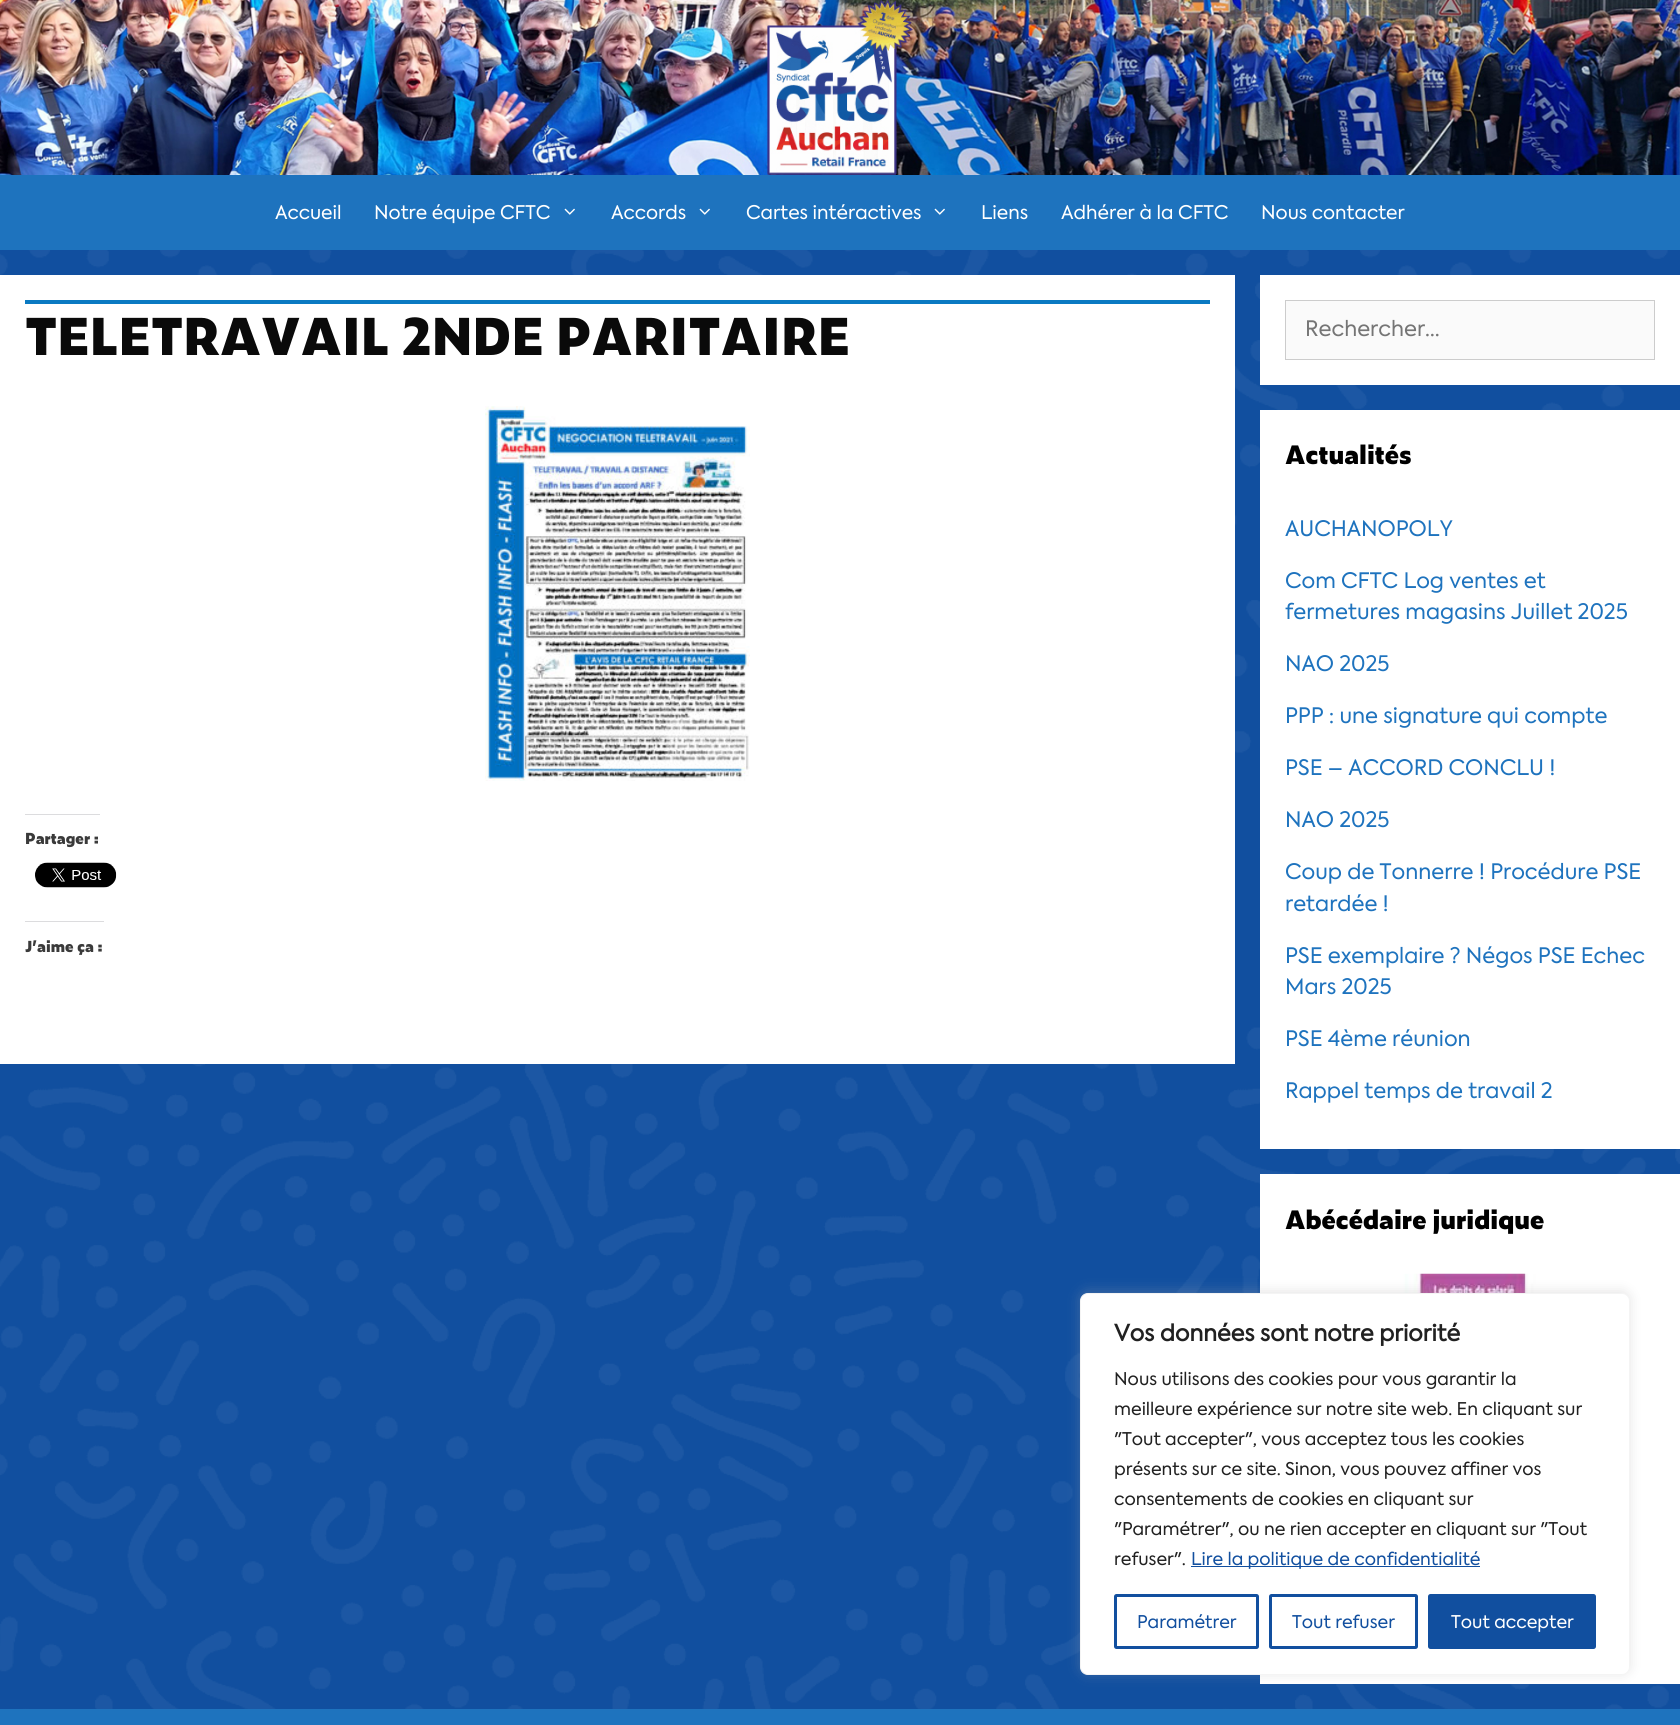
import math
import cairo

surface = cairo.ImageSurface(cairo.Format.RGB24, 1680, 1725)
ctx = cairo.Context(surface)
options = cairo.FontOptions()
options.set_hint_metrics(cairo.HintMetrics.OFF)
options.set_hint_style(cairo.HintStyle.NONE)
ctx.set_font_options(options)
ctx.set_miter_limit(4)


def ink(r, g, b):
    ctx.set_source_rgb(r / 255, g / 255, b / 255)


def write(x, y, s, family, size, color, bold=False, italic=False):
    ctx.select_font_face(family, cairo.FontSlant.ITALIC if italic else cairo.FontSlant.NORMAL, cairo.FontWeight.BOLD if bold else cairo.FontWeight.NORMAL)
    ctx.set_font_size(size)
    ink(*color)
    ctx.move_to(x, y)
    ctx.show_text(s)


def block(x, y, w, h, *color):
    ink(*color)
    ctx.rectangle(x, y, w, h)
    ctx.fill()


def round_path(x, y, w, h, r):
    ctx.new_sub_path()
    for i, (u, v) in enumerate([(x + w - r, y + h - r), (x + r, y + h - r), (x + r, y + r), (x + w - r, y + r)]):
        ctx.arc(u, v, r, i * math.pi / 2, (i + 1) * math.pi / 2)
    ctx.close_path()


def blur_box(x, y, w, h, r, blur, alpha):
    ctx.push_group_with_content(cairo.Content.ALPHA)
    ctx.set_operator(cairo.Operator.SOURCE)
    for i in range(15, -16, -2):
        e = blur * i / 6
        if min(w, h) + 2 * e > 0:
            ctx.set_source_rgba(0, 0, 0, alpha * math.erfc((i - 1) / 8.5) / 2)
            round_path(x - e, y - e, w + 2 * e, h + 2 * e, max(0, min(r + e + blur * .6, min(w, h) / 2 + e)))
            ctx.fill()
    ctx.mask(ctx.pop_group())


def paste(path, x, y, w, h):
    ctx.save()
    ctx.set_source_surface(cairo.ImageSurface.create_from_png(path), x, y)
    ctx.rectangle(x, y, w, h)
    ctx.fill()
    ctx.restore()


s1 = dict(family="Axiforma", size=18.75, color=(255, 255, 255))
s2 = dict(family="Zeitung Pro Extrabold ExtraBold", size=50, color=(10, 10, 10))
s3 = dict(family="Zeitung Pro Extrabold ExtraBold", size=15, color=(58, 58, 58))
s4 = dict(family="Axiforma", size=21.25, color=(117, 117, 117))
s5 = dict(family="Zeitung Pro Extrabold ExtraBold", size=25, color=(0, 0, 0))
s6 = dict(family="Axiforma", size=21.25, color=(30, 115, 190))
s7 = dict(family="Axiforma", size=22.5, color=(33, 33, 33), bold=True)
s8 = dict(family="Axiforma", size=17.5, color=(33, 33, 33))
s9 = dict(family="Axiforma", size=17.5, color=(17, 79, 159))
s10 = dict(family="Axiforma", size=17.5, color=(255, 255, 255))

ink(17, 79, 159)
ctx.paint()
paste("pic1.png", 0, 250, 1680, 1459)
paste("pic2.png", 0, 0, 1680, 175)
block(0, 175, 1680, 75, 30, 115, 190)
write(275, 219, "Accueil", **s1)
write(374, 219, "Notre équipe CFTC", **s1)
paste("pic3.png", 564, 208, 11, 7)
write(611, 219, "Accords", **s1)
paste("pic3.png", 699, 208, 11, 7)
write(746, 219, "Cartes intéractives", **s1)
paste("pic3.png", 934, 208, 11, 7)
write(981, 219, "Liens", **s1)
write(1061, 219, "Adhérer à la CFTC", **s1)
write(1261, 219, "Nous contacter", **s1)
block(0, 275, 1235, 789, 255, 255, 255)
block(25, 300, 1185, 4, 10, 122, 194)
write(25, 355, "TELETRAVAIL 2NDE PARITAIRE", **s2)
paste("pic4.png", 485, 406, 265, 375)
block(25, 814, 75, 1, 220, 220, 222)
write(25, 844, "Partager :", **s3)
paste("pic5.png", 35, 862, 82, 26)
block(25, 921, 79, 1, 220, 220, 222)
write(25, 952, "J’aime ça :", **s3)
block(1260, 275, 420, 110, 255, 255, 255)
ink(250, 250, 250)
ctx.rectangle(1285.5, 300.5, 369, 59)
ctx.fill_preserve()
ink(204, 204, 204)
ctx.set_line_width(1)
ctx.stroke()
write(1305, 336, "Rechercher…", **s4)
block(1260, 410, 420, 739, 255, 255, 255)
write(1285, 464, "Actualités", **s5)
write(1285, 536, "AUCHANOPOLY", **s6)
write(1285, 588, "Com CFTC Log ventes et", **s6)
write(1285, 619, "fermetures magasins Juillet 2025", **s6)
write(1285, 671, "NAO 2025", **s6)
write(1285, 723, "PPP : une signature qui compte", **s6)
write(1285, 775, "PSE – ACCORD CONCLU !", **s6)
write(1285, 827, "NAO 2025", **s6)
write(1285, 879, "Coup de Tonnerre ! Procédure PSE", **s6)
write(1285, 911, "retardée !", **s6)
write(1285, 963, "PSE exemplaire ? Négos PSE Echec", **s6)
write(1285, 994, "Mars 2025", **s6)
write(1285, 1046, "PSE 4ème réunion", **s6)
write(1285, 1098, "Rappel temps de travail 2", **s6)
block(1260, 1174, 420, 510, 255, 255, 255)
write(1285, 1229, "Abécédaire juridique", **s5)
paste("pic6.png", 1345, 1273, 250, 20)
ink(172, 171, 171)
blur_box(1080, 1291, 550, 383, 8, 6, 0.3)
ink(255, 255, 255)
round_path(1080.5, 1293.5, 549, 381, 7.5)
ctx.fill_preserve()
ink(244, 244, 244)
ctx.stroke()
write(1114, 1341, "Vos données sont notre priorité", **s7)
write(1114, 1385, "Nous utilisons des cookies pour vous garantir la", **s8)
write(1114, 1415, "meilleure expérience sur notre site web. En cliquant sur", **s8)
write(1114, 1445, "\"Tout accepter\", vous acceptez tous les cookies", **s8)
write(1114, 1475, "présents sur ce site. Sinon, vous pouvez affiner vos", **s8)
write(1114, 1505, "consentements de cookies en cliquant sur", **s8)
write(1114, 1535, "\"Paramétrer\", ou ne rien accepter en cliquant sur \"Tout", **s8)
write(1114, 1565, "refuser\".", **s8)
block(1191, 1566, 289, 1, 17, 79, 159)
write(1191, 1565, "Lire la politique de confidentialité", **s9)
round_path(1115.5, 1595.5, 142, 52, 1)
ctx.set_line_width(3)
ctx.stroke()
write(1137, 1628, "Paramétrer", **s9)
round_path(1270.5, 1595.5, 146, 52, 1)
ctx.stroke()
write(1292, 1628, "Tout refuser", **s9)
round_path(1429.5, 1595.5, 165, 52, 1)
ctx.fill_preserve()
ctx.stroke()
write(1451, 1628, "Tout accepter", **s10)
block(0, 1709, 1680, 16, 30, 115, 190)
surface.write_to_png("screenshot.png")
